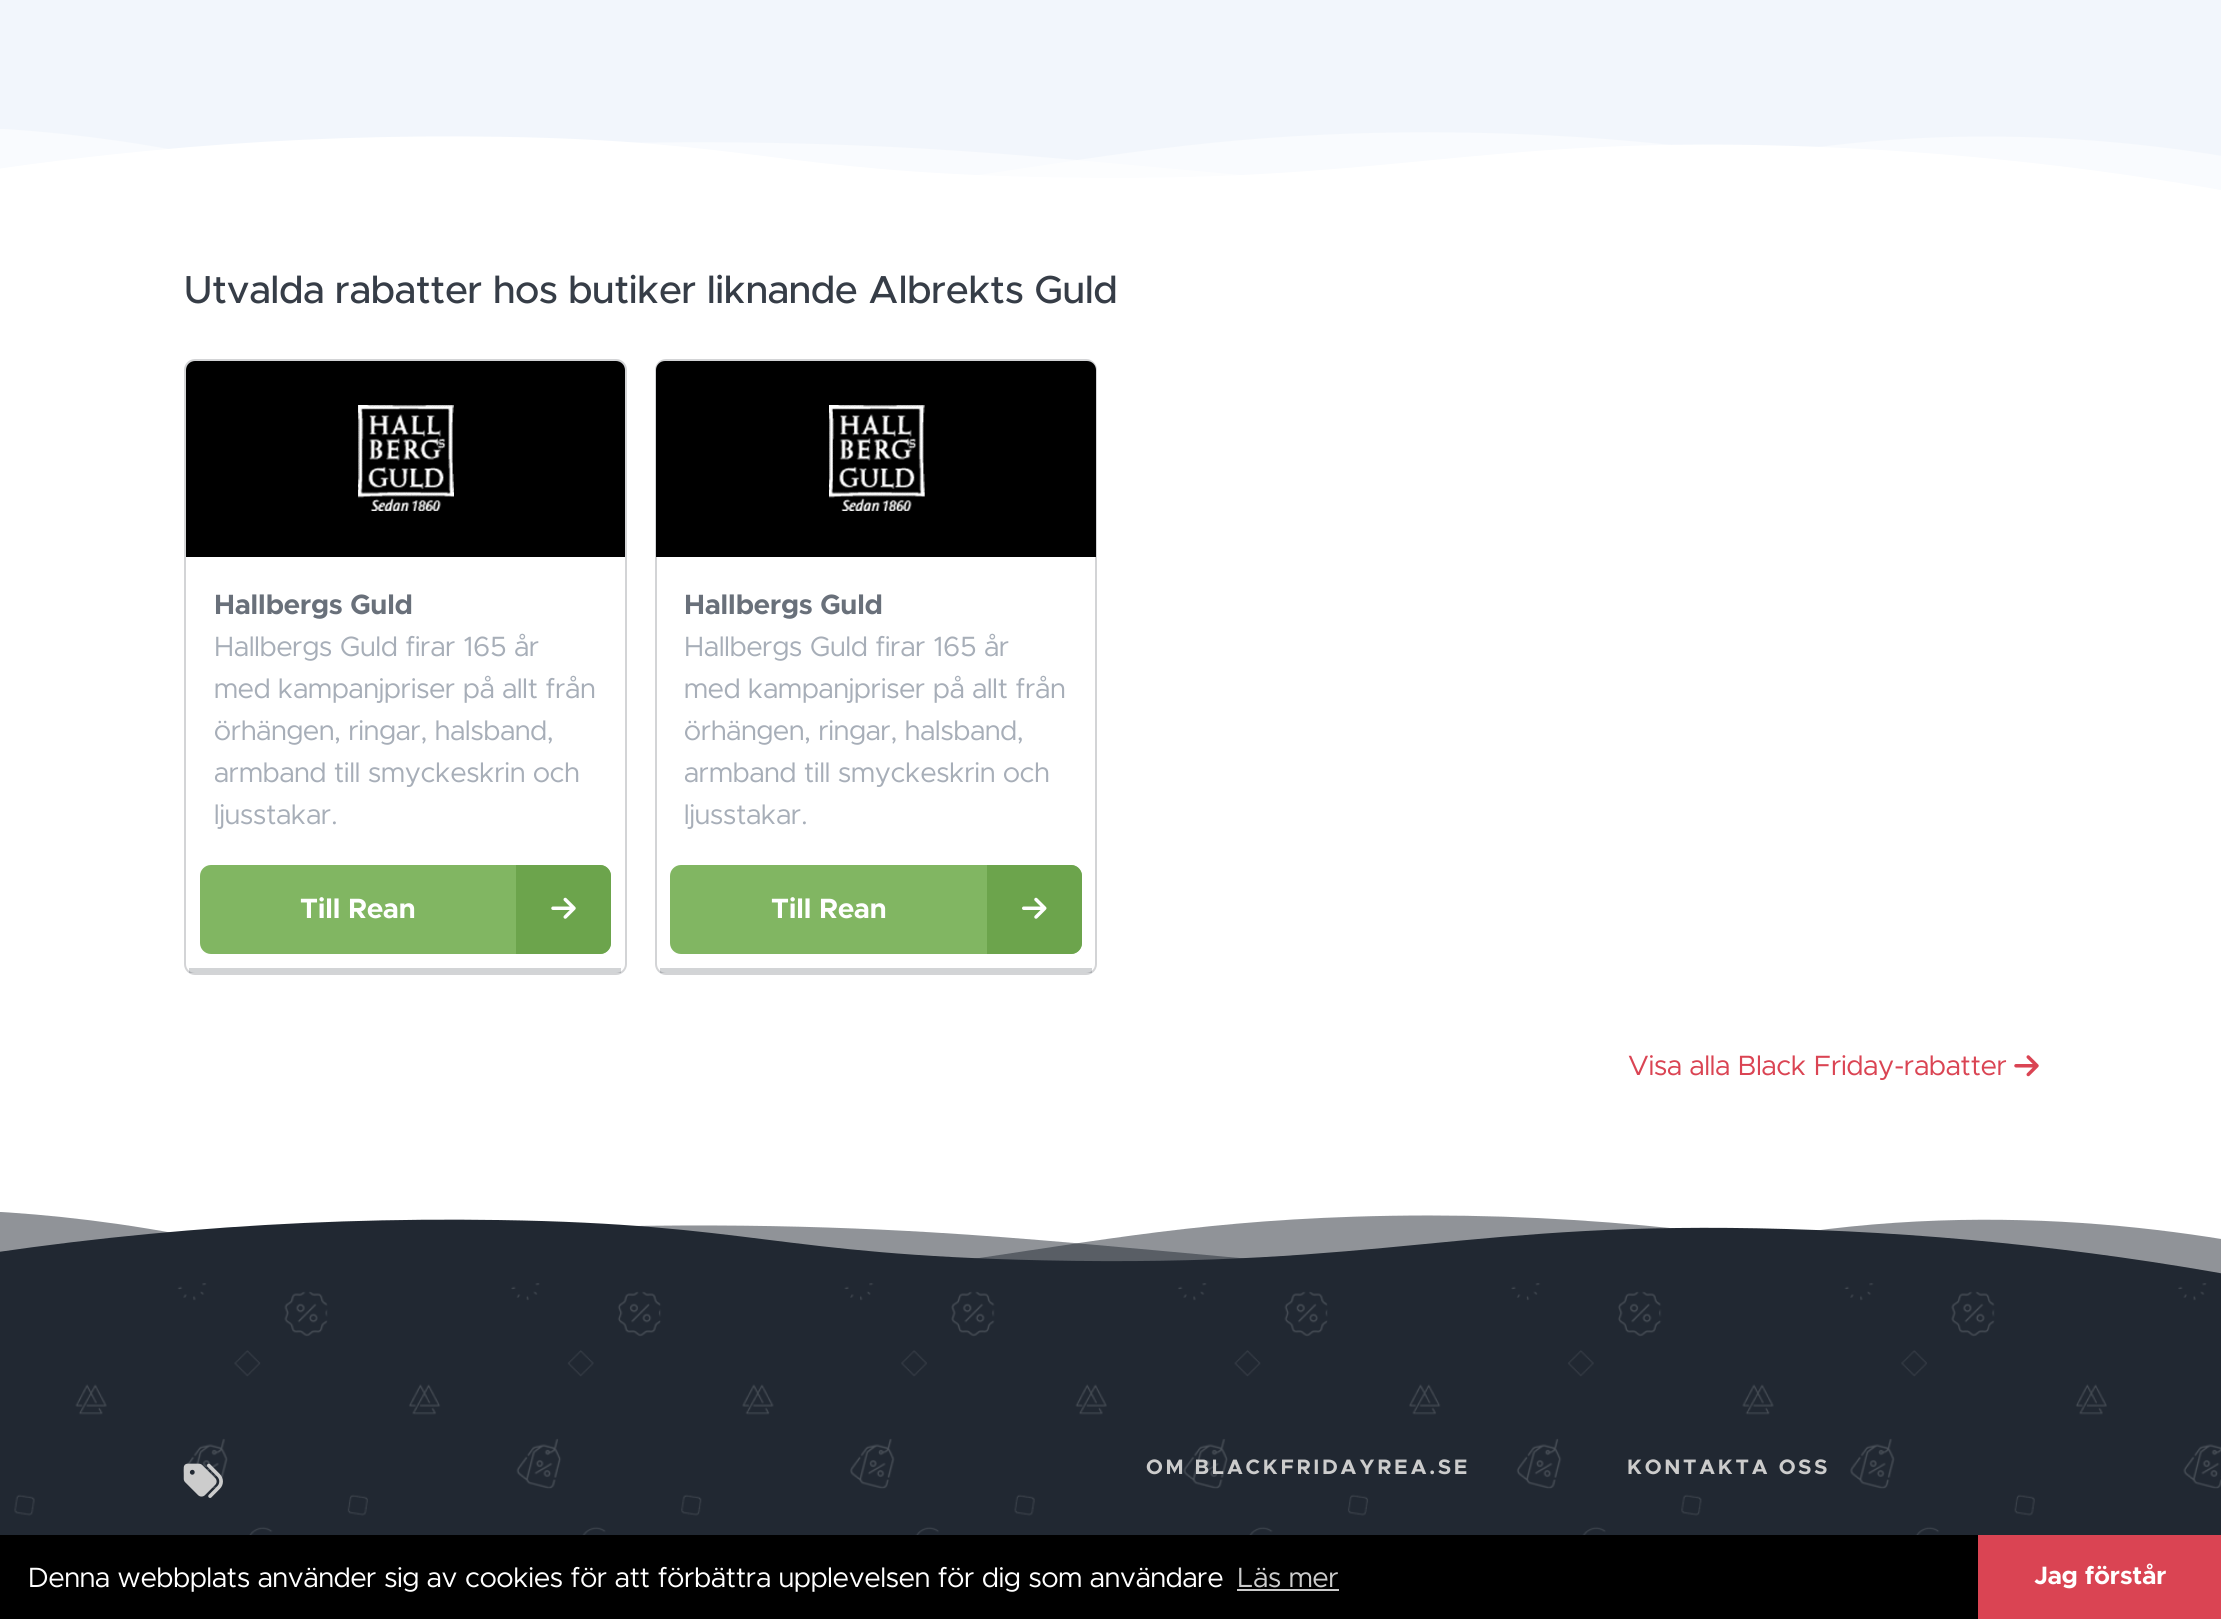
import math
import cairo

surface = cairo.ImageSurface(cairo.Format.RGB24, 2221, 1619)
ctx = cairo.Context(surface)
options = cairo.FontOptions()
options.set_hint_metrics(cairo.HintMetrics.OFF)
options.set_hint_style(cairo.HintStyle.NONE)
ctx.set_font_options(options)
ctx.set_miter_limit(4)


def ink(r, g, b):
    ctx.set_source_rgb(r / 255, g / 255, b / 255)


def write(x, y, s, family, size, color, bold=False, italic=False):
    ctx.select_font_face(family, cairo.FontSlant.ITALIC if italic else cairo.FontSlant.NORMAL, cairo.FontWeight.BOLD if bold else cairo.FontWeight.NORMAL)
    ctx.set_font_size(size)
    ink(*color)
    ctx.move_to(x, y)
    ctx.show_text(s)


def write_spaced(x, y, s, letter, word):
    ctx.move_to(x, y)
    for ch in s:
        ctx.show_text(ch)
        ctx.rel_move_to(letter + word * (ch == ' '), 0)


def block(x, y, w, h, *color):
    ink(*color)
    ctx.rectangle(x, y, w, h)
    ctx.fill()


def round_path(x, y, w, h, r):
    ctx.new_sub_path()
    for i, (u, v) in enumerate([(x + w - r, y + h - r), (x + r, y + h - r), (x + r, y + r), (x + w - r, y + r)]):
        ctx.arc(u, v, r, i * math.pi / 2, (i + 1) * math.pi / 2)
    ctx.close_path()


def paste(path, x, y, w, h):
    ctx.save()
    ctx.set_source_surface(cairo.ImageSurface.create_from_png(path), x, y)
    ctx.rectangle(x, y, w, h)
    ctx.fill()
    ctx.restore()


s1 = dict(family="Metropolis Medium", size=39.2, color=(54, 61, 71))
s2 = dict(family="Metropolis", size=28, color=(105, 112, 122), bold=True)
s3 = dict(family="Metropolis", size=28, color=(167, 174, 184))
s4 = dict(family="Metropolis", size=28, color=(255, 255, 255), bold=True)
s5 = dict(family="Metropolis", size=28, color=(218, 68, 83))
s6 = dict(family="Metropolis", size=28, color=(255, 255, 255))
s7 = dict(family="Metropolis", size=28, color=(204, 204, 204))
s8 = dict(family="Metropolis", size=25.25, color=(255, 255, 255), bold=True)

ink(242, 246, 252)
ctx.paint()
paste("pic1.png", 0, 129, 2221, 71)
block(0, 200, 2221, 1074, 255, 255, 255)
write(184, 303, "Utvalda rabatter hos butiker liknande Albrekts Guld", **s1)
round_path(185, 360, 441, 614, 10)
ink(211, 212, 214)
ctx.stroke()
ctx.set_source_rgba(0.129, 0.157, 0.196, 0.2)
ctx.rectangle(189, 968, 432, 5)
ctx.fill()
ink(0, 0, 0)
ctx.new_path()
ctx.move_to(195, 361)
ctx.line_to(616, 361)
ctx.curve_to(621, 361, 625, 365, 625, 370)
ctx.line_to(625, 557)
ctx.line_to(186, 557)
ctx.line_to(186, 370)
ctx.curve_to(186, 365, 190, 361, 195, 361)
ctx.close_path()
ctx.fill()
paste("pic2.png", 358, 405, 96, 106)
write(214, 614, "Hallbergs Guld", **s2)
write(214, 656, "Hallbergs Guld firar 165 år", **s3)
write(214, 698, "med kampanjpriser på allt från", **s3)
write(214, 740, "örhängen, ringar, halsband,", **s3)
write(214, 782, "armband till smyckeskrin och", **s3)
write(214, 824, "ljusstakar.", **s3)
ink(129, 182, 98)
round_path(200, 865, 411, 89, 11)
ctx.fill()
write(300, 918, "Till Rean", **s4)
ink(108, 164, 76)
ctx.new_path()
ctx.move_to(516, 865)
ctx.line_to(600, 865)
ctx.curve_to(606, 865, 611, 870, 611, 876)
ctx.line_to(611, 943)
ctx.curve_to(611, 949, 606, 954, 600, 954)
ctx.line_to(516, 954)
ctx.close_path()
ctx.fill()
paste("pic3.png", 551, 897, 25, 22)
round_path(656, 360, 440, 614, 10)
ink(211, 212, 214)
ctx.stroke()
ctx.set_source_rgba(0.129, 0.157, 0.196, 0.2)
ctx.rectangle(660, 968, 432, 5)
ctx.fill()
ink(0, 0, 0)
ctx.new_path()
ctx.move_to(665, 361)
ctx.line_to(1087, 361)
ctx.curve_to(1092, 361, 1096, 365, 1096, 370)
ctx.line_to(1096, 557)
ctx.line_to(656, 557)
ctx.line_to(656, 370)
ctx.curve_to(656, 365, 660, 361, 665, 361)
ctx.close_path()
ctx.fill()
paste("pic4.png", 829, 405, 96, 106)
write(684, 614, "Hallbergs Guld", **s2)
write(684, 656, "Hallbergs Guld firar 165 år", **s3)
write(684, 698, "med kampanjpriser på allt från", **s3)
write(684, 740, "örhängen, ringar, halsband,", **s3)
write(684, 782, "armband till smyckeskrin och", **s3)
write(684, 824, "ljusstakar.", **s3)
ink(129, 182, 98)
round_path(670, 865, 412, 89, 11)
ctx.fill()
write(771, 918, "Till Rean", **s4)
ink(108, 164, 76)
ctx.new_path()
ctx.move_to(987, 865)
ctx.line_to(1071, 865)
ctx.curve_to(1077, 865, 1082, 870, 1082, 876)
ctx.line_to(1082, 943)
ctx.curve_to(1082, 949, 1077, 954, 1071, 954)
ctx.line_to(987, 954)
ctx.close_path()
ctx.fill()
paste("pic5.png", 1022, 897, 25, 22)
write(1628, 1075, "Visa alla Black Friday-rabatter", **s5)
paste("pic6.png", 2014, 1055, 25, 22)
paste("pic7.png", 0, 1212, 2221, 71)
block(0, 1283, 2221, 252, 33, 40, 50)
paste("pic8.png", 14, 1283, 2207, 252)
paste("pic9.png", 183, 1463, 40, 35)
ctx.select_font_face("Metropolis", cairo.FontSlant.NORMAL, cairo.FontWeight.BOLD)
ctx.set_font_size(21)
ink(204, 204, 204)
write_spaced(1146, 1474, "OM BLACKFRIDAYREA.SE", 2.6, 0)
write_spaced(1627, 1474, "KONTAKTA OSS", 2.6, 0)
block(0, 1535, 1978, 84, 0, 0, 0)
write(28, 1587, "Denna webbplats använder sig av cookies för att förbättra upplevelsen för dig som användare", **s6)
write(1237, 1587, "Läs mer", **s7)
block(1237, 1589, 102, 2, 204, 204, 204)
block(1978, 1535, 243, 84, 218, 68, 83)
write(2034, 1584, "Jag förstår", **s8)
surface.write_to_png("screenshot.png")
